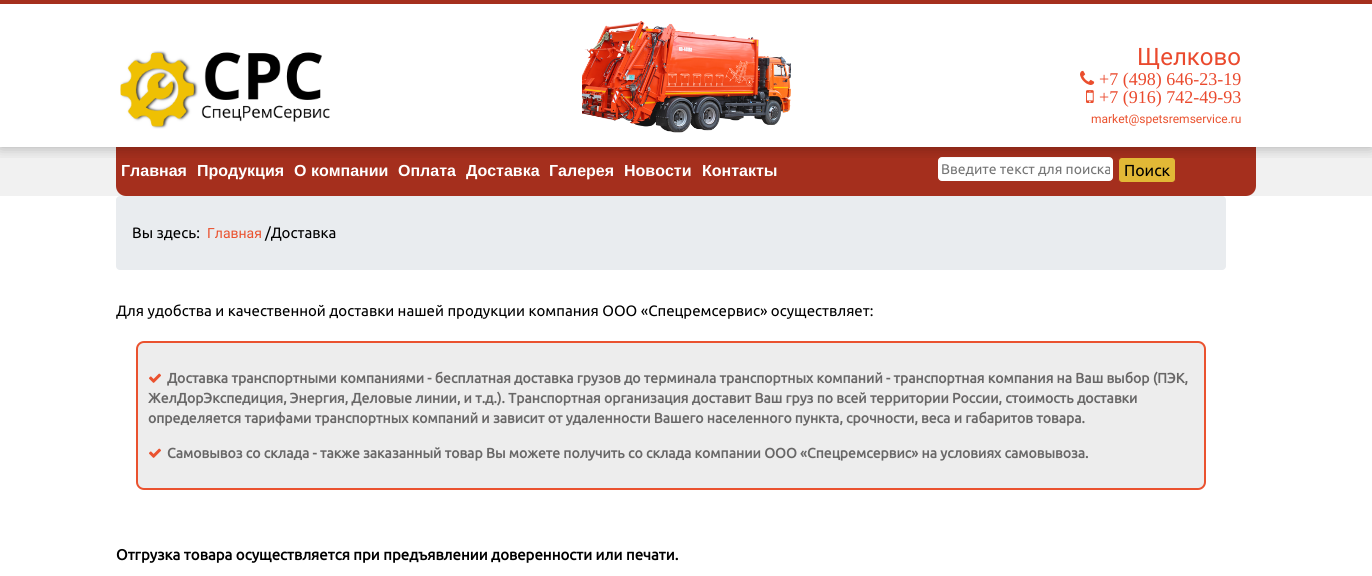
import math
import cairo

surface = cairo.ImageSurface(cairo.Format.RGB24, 1372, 576)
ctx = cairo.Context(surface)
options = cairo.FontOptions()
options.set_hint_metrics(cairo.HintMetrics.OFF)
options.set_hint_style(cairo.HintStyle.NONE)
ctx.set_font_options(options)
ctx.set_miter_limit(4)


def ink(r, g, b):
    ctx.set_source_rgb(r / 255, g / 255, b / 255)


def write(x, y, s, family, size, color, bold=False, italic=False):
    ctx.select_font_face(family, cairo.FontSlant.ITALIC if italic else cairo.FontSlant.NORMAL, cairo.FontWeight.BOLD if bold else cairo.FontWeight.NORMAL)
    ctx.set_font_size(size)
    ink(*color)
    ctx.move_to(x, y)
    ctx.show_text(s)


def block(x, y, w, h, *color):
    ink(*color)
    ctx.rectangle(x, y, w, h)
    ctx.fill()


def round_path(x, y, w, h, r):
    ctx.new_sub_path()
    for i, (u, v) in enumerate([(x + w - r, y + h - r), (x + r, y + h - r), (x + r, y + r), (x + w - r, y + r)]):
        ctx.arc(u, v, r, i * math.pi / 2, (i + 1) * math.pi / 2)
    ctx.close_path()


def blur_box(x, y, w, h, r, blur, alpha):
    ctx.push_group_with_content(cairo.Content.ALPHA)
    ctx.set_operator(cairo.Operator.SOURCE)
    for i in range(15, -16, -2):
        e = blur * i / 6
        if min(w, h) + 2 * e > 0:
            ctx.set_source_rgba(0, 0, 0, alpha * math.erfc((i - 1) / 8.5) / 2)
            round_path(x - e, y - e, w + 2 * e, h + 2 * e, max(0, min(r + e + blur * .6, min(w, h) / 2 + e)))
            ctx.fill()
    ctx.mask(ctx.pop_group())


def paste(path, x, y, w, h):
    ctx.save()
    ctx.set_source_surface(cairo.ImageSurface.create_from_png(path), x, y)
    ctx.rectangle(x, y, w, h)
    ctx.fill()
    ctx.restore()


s1 = dict(family="Roboto", size=24, color=(234, 74, 46))
s2 = dict(family="Liberation Serif", size=18, color=(234, 74, 46))
s3 = dict(family="Roboto", size=12, color=(234, 82, 47))
s4 = dict(family="Liberation Sans", size=16, color=(255, 255, 255), bold=True)
s5 = dict(family="Ubuntu", size=14, color=(117, 117, 117))
s6 = dict(family="Ubuntu", size=16, color=(0, 0, 0))
s7 = dict(family="Ubuntu", size=15, color=(0, 0, 0))
s8 = dict(family="Roboto", size=14, color=(234, 82, 47))
s9 = dict(family="Ubuntu", size=14, color=(104, 103, 103), bold=True)
s10 = dict(family="Ubuntu", size=15, color=(0, 0, 0), bold=True)

ink(255, 255, 255)
ctx.paint()
block(0, 147, 1372, 49, 241, 241, 241)
ink(165, 47, 29)
ctx.new_path()
ctx.move_to(116, 147)
ctx.line_to(1256, 147)
ctx.line_to(1256, 186)
ctx.curve_to(1256, 191.5, 1251.5, 196, 1246, 196)
ctx.line_to(126, 196)
ctx.curve_to(120.5, 196, 116, 191.5, 116, 186)
ctx.close_path()
ctx.fill()
ink(255, 255, 255)
round_path(938.5, 157.5, 174, 23, 3.5)
ctx.fill_preserve()
ctx.set_line_width(1)
ctx.stroke()
ink(226, 184, 54)
round_path(1118.5, 157.5, 57, 25, 3.5)
ctx.fill_preserve()
ink(165, 47, 29)
ctx.stroke()
ctx.save()
ctx.rectangle(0, 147, 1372, 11)
ctx.clip()
ink(0, 0, 0)
blur_box(0, 0, 1372, 147, 0, 7.5, 0.3)
ctx.restore()
block(0, 0, 1372, 4, 165, 47, 29)
paste("pic1.png", 582, 21, 209, 112)
paste("pic2.png", 120, 50, 210, 79)
write(1137, 65, "Щелково", **s1)
paste("pic3.png", 1080, 70, 15, 15)
write(1099, 85, "+7 (498) 646-23-19", **s2)
paste("pic4.png", 1086, 90, 8, 13)
write(1099, 103, "+7 (916) 742-49-93", **s2)
write(1091, 123, "market@spetsremservice.ru", **s3)
write(121, 176, "Главная", **s4)
write(197, 176, "Продукция", **s4)
write(294, 176, "О компании", **s4)
write(398, 176, "Оплата", **s4)
write(466, 176, "Доставка", **s4)
write(549, 176, "Галерея", **s4)
write(624, 176, "Новости", **s4)
write(702, 176, "Контакты", **s4)
ctx.save()
ctx.rectangle(941, 161, 169, 16)
ctx.clip()
write(941, 174, "Введите текст для поиска", **s5)
ctx.restore()
write(1124, 176, "Поиск", **s6)
ink(233, 236, 239)
round_path(116, 196, 1110, 74, 4)
ctx.fill()
write(132, 238, "Вы здесь:", **s7)
write(207, 238, "Главная", **s8)
write(265, 238, "/Доставка", **s7)
write(116, 316, "Для удобства и качественной доставки нашей продукции компания ООО «Спецремсервис» осуществляет:", **s7)
ink(237, 237, 237)
round_path(137, 342, 1068, 147, 7)
ctx.fill_preserve()
ink(234, 82, 47)
ctx.set_line_width(2)
ctx.stroke()
paste("pic5.png", 149, 373, 12, 10)
write(167, 383, "Доставка транспортными компаниями - бесплатная доставка грузов до терминала транспортных компаний - транспортная компания на Ваш выбор (ПЭК,", **s9)
write(148, 403, "ЖелДорЭкспедиция, Энергия, Деловые линии, и т.д.). Транспортная организация доставит Ваш груз по всей территории России, стоимость доставки", **s9)
write(148, 423, "определяется тарифами транспортных компаний и зависит от удаленности Вашего населенного пункта, срочности, веса и габаритов товара.", **s9)
paste("pic5.png", 149, 448, 12, 10)
write(167, 458, "Самовывоз со склада - также заказанный товар Вы можете получить со склада компании ООО «Спецремсервис» на условиях самовывоза.", **s9)
write(116, 560, "Отгрузка товара осуществляется при предъявлении доверенности или печати.", **s10)
surface.write_to_png("screenshot.png")
